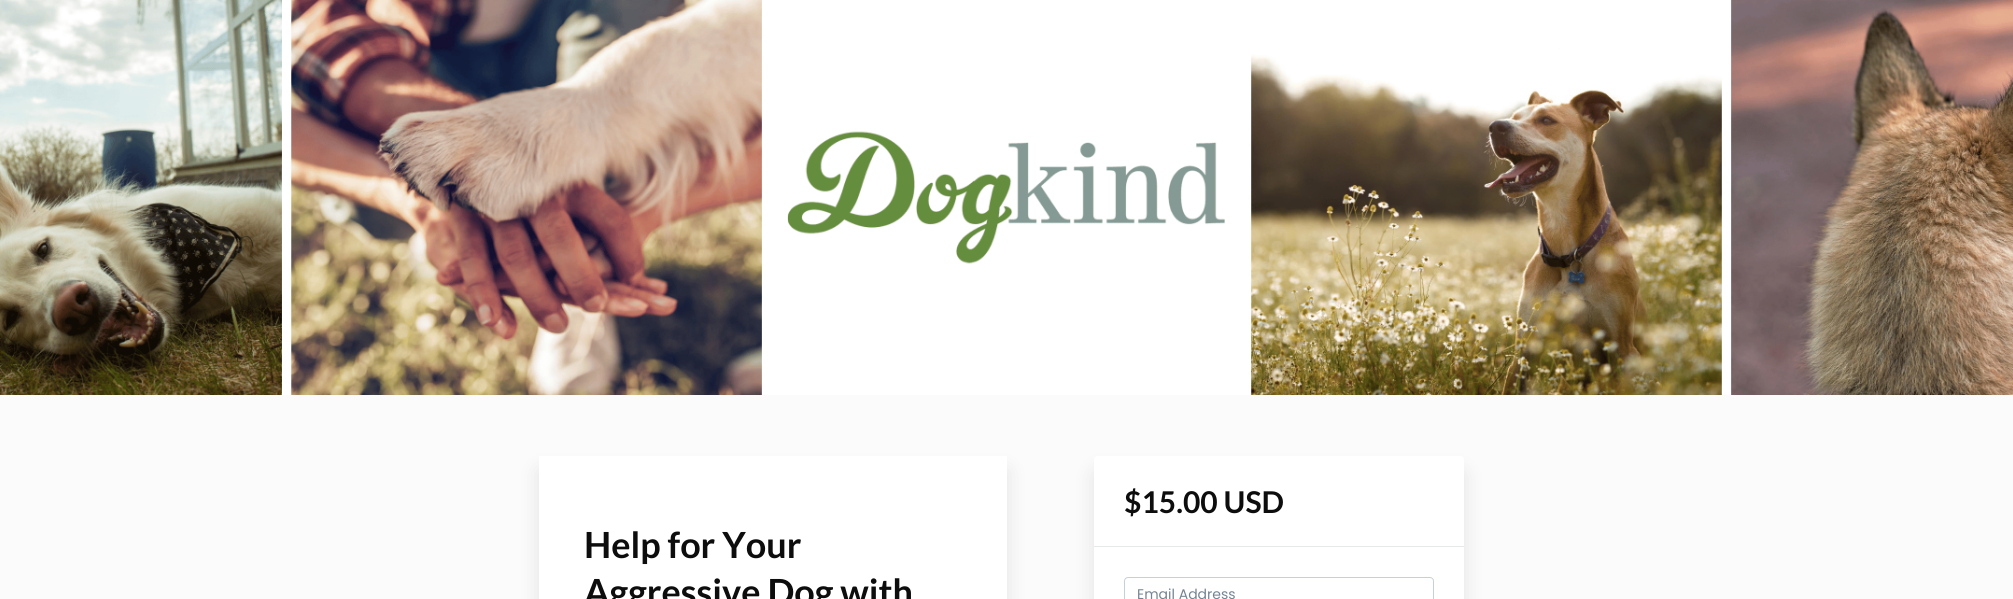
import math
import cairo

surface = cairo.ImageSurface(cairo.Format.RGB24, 2013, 599)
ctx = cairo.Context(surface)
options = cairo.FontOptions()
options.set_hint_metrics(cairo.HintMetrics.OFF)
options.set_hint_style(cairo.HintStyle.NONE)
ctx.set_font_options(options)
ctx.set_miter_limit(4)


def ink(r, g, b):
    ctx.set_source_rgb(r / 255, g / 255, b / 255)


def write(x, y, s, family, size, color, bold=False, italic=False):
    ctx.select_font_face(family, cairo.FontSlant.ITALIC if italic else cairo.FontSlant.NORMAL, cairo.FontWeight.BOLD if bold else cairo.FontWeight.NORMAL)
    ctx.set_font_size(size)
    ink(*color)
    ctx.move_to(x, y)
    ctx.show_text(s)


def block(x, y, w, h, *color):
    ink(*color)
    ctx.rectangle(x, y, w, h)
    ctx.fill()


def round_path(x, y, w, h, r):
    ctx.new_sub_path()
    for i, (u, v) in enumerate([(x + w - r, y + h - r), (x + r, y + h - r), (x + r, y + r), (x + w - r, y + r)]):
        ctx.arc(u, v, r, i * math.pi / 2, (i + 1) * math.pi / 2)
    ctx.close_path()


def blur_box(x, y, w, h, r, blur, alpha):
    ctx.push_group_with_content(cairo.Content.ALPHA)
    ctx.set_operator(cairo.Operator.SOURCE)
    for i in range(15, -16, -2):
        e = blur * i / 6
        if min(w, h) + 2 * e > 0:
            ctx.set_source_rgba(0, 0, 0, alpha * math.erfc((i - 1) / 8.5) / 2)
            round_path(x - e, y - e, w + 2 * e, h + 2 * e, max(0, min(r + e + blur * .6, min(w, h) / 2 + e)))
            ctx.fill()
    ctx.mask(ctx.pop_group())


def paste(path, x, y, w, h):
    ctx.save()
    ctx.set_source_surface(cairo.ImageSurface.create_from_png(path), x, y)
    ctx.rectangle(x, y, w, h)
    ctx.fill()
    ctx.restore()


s1 = dict(family="Lato", size=36, color=(13, 13, 13), bold=True)
s2 = dict(family="Lato", size=30, color=(13, 13, 13), bold=True)
s3 = dict(family="Poppins", size=14, color=(116, 132, 147))

ink(251, 251, 251)
ctx.paint()
paste("pic1.png", 0, 0, 2013, 395)
ink(0, 0, 0)
blur_box(539, 471, 468, 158, 0, 10, 0.1)
block(539, 456, 468, 143, 255, 255, 255)
write(584, 558, "Help for Your", **s1)
write(584, 605, "Aggressive Dog with", **s1)
ink(0, 0, 0)
blur_box(1094, 471, 370, 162, 4, 10, 0.1)
ink(255, 255, 255)
round_path(1094, 456, 370, 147, 4)
ctx.fill()
block(1094, 546, 370, 1, 229, 233, 233)
write(1124, 513, "$15.00 USD", **s2)
round_path(1124.5, 577.5, 309, 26, 3.5)
ink(199, 207, 216)
ctx.set_line_width(1)
ctx.stroke()
write(1137, 599, "Email Address", **s3)
surface.write_to_png("screenshot.png")
